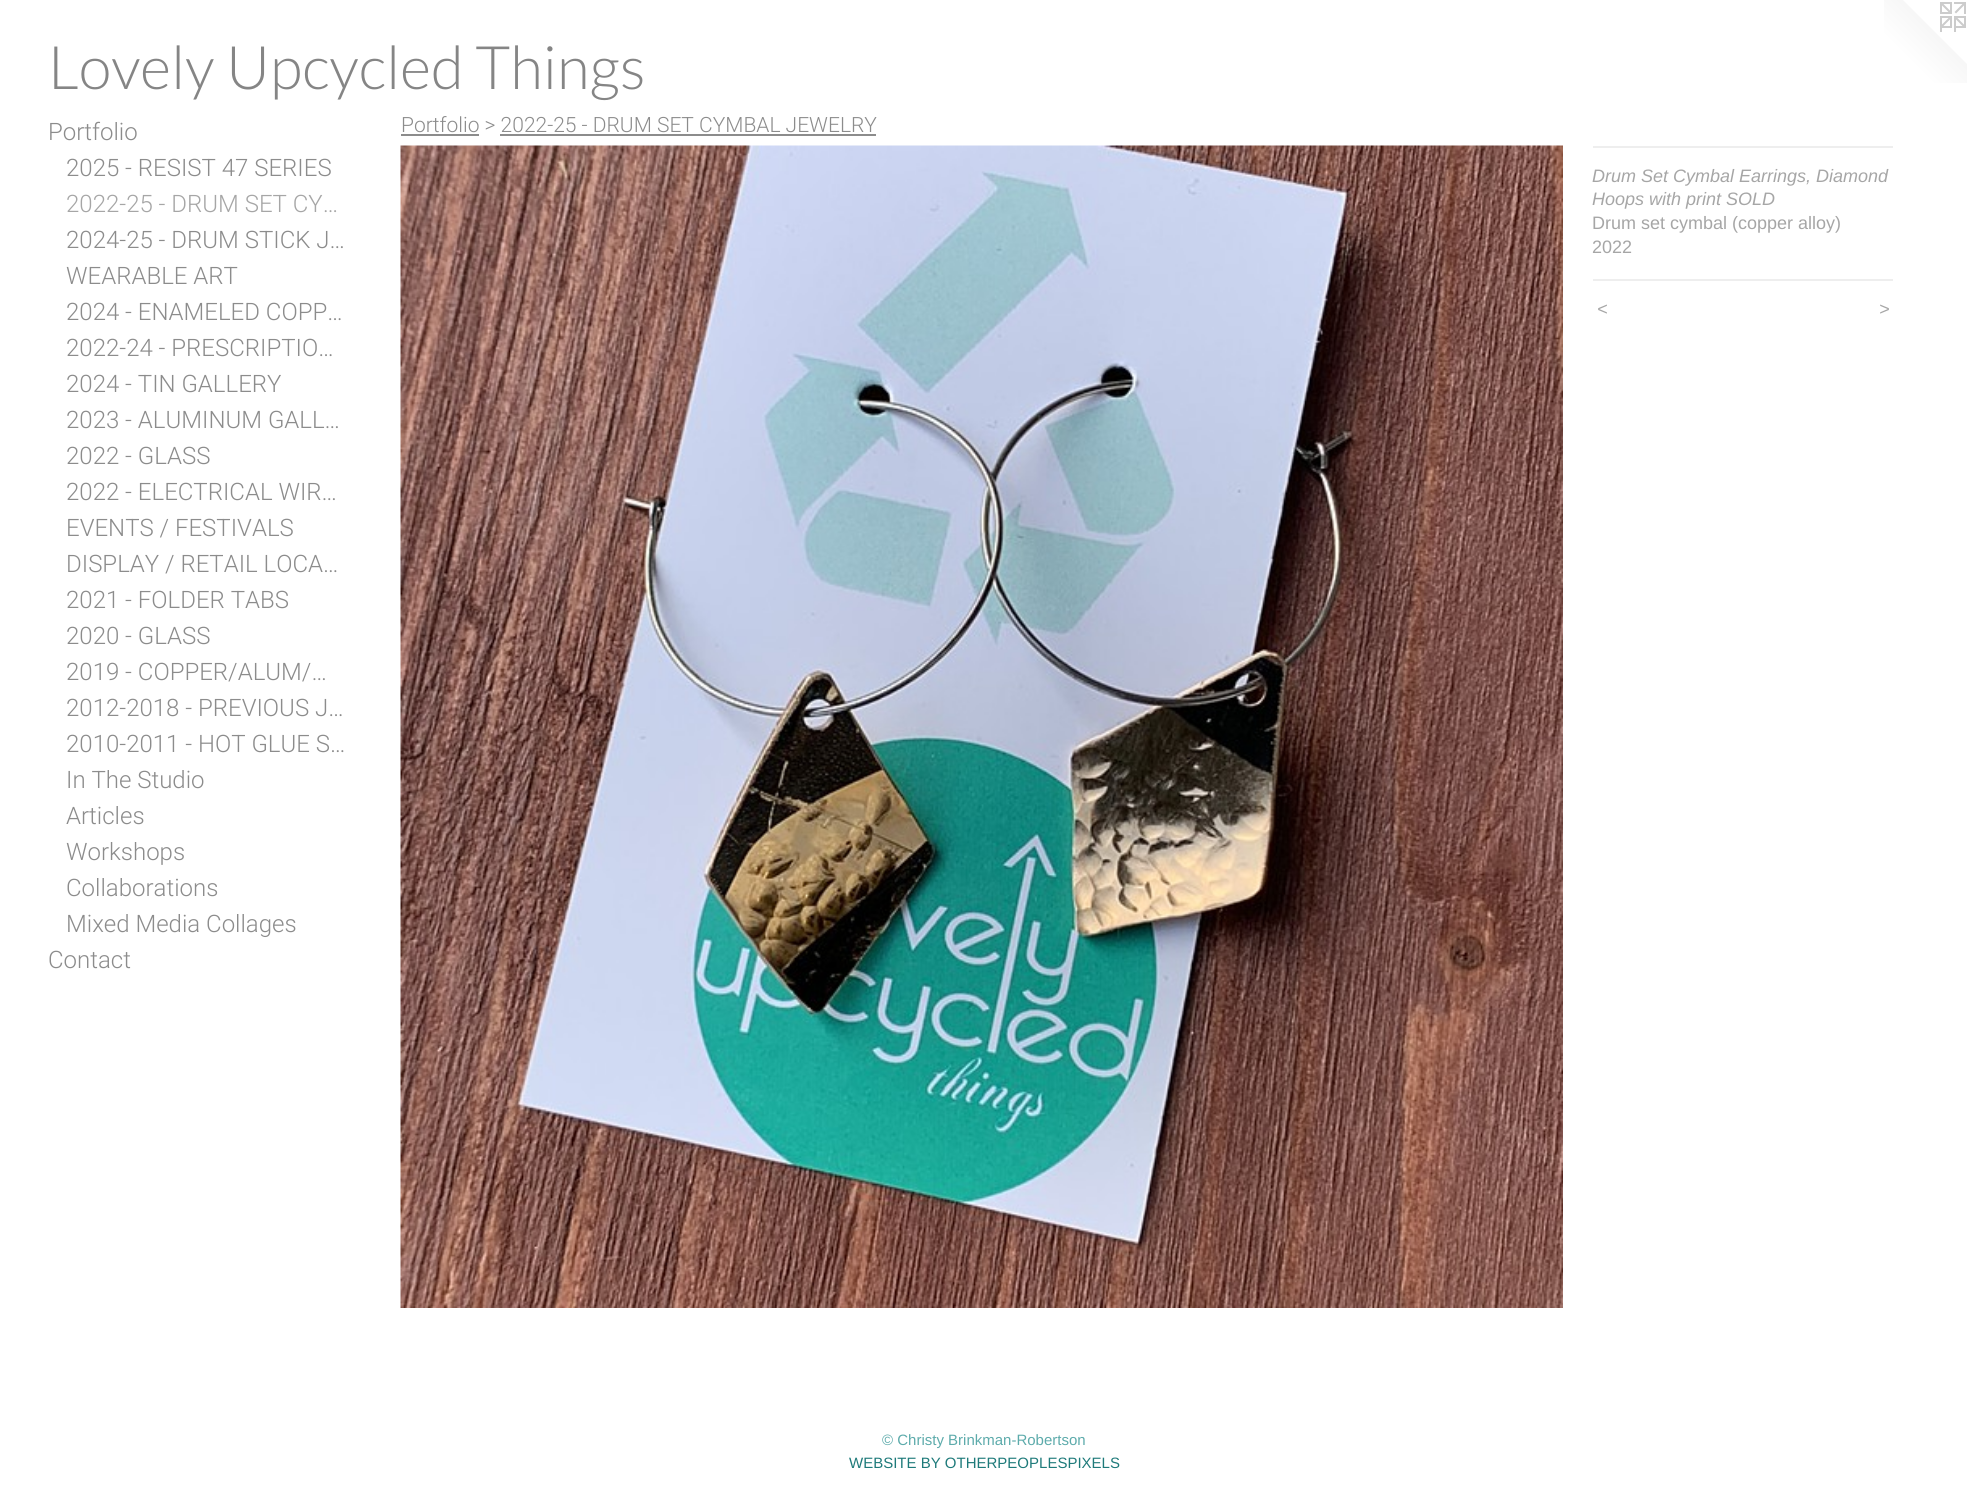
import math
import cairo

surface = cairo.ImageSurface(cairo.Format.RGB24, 1967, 1489)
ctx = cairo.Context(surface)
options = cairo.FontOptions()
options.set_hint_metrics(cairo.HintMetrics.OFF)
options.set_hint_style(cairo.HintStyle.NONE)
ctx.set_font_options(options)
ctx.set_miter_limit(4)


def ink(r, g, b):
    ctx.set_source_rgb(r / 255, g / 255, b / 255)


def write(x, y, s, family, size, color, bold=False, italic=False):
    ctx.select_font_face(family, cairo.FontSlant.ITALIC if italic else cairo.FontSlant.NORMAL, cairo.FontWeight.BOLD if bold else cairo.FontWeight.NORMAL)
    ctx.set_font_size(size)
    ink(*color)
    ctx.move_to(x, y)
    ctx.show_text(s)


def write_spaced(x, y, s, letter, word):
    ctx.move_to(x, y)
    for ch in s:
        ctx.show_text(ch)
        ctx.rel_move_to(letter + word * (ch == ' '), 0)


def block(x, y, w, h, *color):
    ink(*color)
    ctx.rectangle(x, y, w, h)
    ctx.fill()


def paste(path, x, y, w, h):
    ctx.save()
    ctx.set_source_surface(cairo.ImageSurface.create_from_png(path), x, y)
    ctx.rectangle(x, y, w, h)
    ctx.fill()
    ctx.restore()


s1 = dict(family="Lato Light", size=60, color=(133, 133, 133))
s2 = dict(family="Roboto Light", size=24, color=(140, 140, 140))
s3 = dict(family="Roboto Light", size=24, color=(166, 166, 166))
s4 = dict(family="Roboto Light", size=21, color=(140, 140, 140))
s5 = dict(family="Liberation Sans", size=18, color=(166, 166, 166), italic=True)
s6 = dict(family="Liberation Sans", size=18, color=(166, 166, 166))
s7 = dict(family="Liberation Sans", size=15, color=(93, 171, 171))
s8 = dict(family="Liberation Sans", size=15, color=(30, 122, 122))

ink(255, 255, 255)
ctx.paint()
write(48, 89, "Lovely Upcycled Things", **s1)
paste("pic1.png", 1884, 0, 83, 83)
write(48, 140, "Portfolio", **s2)
write(66, 176, "2025 - RESIST 47 SERIES", **s2)
write(66, 212, "2022-25 - DRUM SET CY…", **s3)
write(66, 248, "2024-25 - DRUM STICK J…", **s2)
write(66, 284, "WEARABLE ART", **s2)
write(66, 320, "2024 - ENAMELED COPP…", **s2)
write(66, 356, "2022-24 - PRESCRIPTIO…", **s2)
write(66, 392, "2024 - TIN GALLERY", **s2)
write(66, 428, "2023 - ALUMINUM GALL…", **s2)
write(66, 464, "2022 - GLASS", **s2)
write(66, 500, "2022 - ELECTRICAL WIR…", **s2)
write(66, 536, "EVENTS / FESTIVALS", **s2)
write(66, 572, "DISPLAY / RETAIL LOCA…", **s2)
write(66, 608, "2021 - FOLDER TABS", **s2)
write(66, 644, "2020 - GLASS", **s2)
write(66, 680, "2019 - COPPER/ALUM/…", **s2)
write(66, 716, "2012-2018 - PREVIOUS J…", **s2)
write(66, 752, "2010-2011 - HOT GLUE S…", **s2)
write(66, 788, "In The Studio", **s2)
write(66, 824, "Articles", **s2)
write(66, 860, "Workshops", **s2)
write(66, 896, "Collaborations", **s2)
write(66, 932, "Mixed Media Collages", **s2)
write(48, 968, "Contact", **s2)
write(401, 132, "Portfolio > 2022-25 - DRUM SET CYMBAL JEWELRY", **s4)
block(401, 134, 78, 2, 140, 140, 140)
block(500, 134, 376, 2, 140, 140, 140)
paste("pic2.png", 400, 145, 1163, 1163)
block(1593, 146, 300, 2, 238, 238, 238)
write(1592, 182, "Drum Set Cymbal Earrings, Diamond", **s5)
write(1592, 205, "Hoops with print SOLD", **s5)
write(1592, 229, "Drum set cymbal (copper alloy)", **s6)
write(1592, 253, "2022", **s6)
block(1593, 279, 300, 2, 238, 238, 238)
ctx.select_font_face("Liberation Sans", cairo.FontSlant.ITALIC)
ink(166, 166, 166)
write_spaced(1597, 315, "<", 2, 0)
write_spaced(1879, 315, ">", 2, 0)
write(882, 1445, "© Christy Brinkman-Robertson", **s7)
write(849, 1468, "WEBSITE BY OTHERPEOPLESPIXELS", **s8)
surface.write_to_png("screenshot.png")
